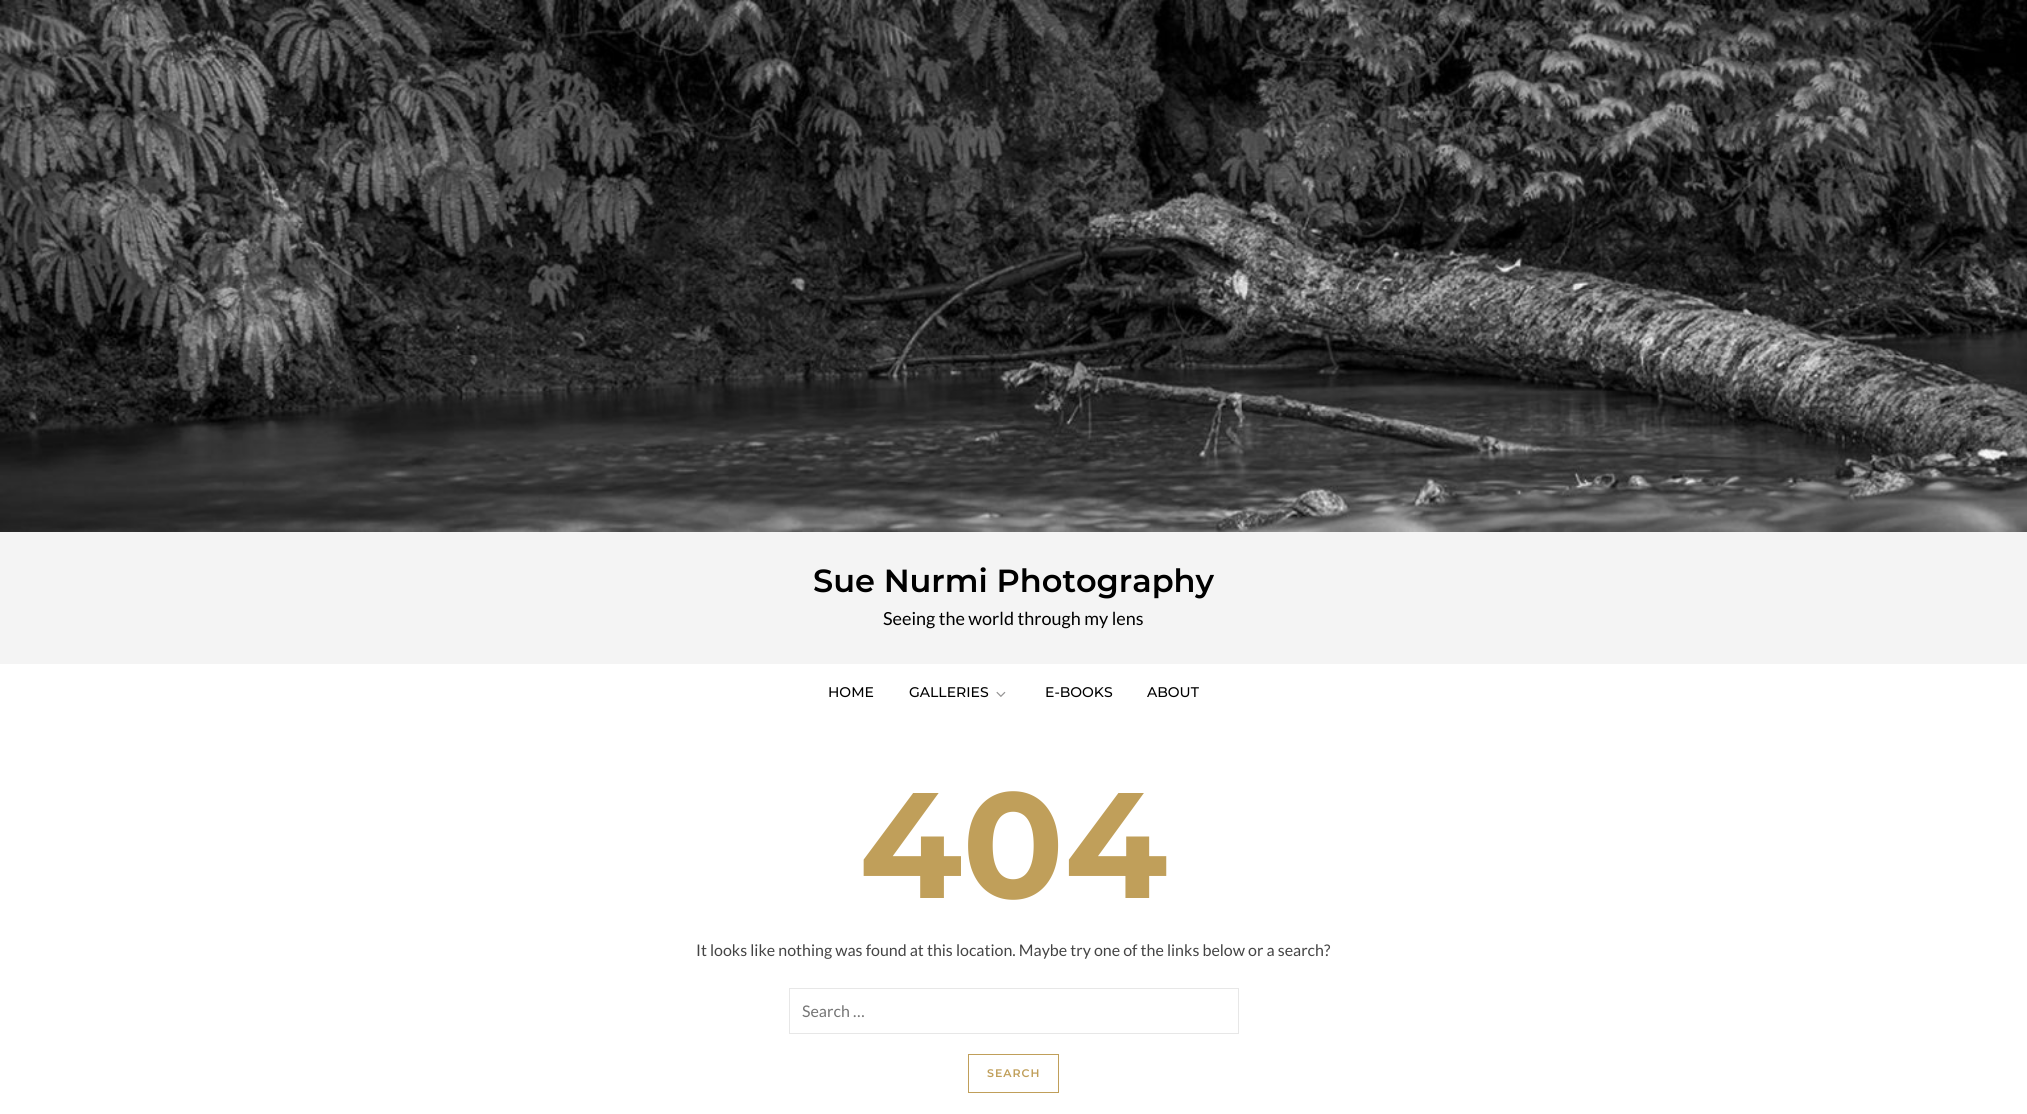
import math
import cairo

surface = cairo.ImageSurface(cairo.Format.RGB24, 2027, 1114)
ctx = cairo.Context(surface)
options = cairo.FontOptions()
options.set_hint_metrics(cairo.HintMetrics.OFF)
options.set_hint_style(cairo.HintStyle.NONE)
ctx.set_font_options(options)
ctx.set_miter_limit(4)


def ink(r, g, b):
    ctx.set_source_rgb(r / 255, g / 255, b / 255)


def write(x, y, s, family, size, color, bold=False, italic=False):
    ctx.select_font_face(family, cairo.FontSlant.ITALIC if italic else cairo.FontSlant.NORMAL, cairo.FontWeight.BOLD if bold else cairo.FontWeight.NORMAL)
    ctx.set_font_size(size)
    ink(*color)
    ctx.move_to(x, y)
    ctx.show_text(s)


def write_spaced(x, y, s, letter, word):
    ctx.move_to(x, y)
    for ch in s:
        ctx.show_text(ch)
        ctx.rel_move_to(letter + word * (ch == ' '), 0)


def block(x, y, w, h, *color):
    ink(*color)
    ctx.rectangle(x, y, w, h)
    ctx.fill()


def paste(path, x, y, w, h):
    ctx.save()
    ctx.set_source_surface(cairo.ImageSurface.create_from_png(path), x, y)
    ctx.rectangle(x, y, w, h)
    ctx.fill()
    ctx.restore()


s1 = dict(family="Montserrat SemiBold", size=32, color=(0, 0, 0))
s2 = dict(family="Lato", size=18, color=(0, 0, 0))
s3 = dict(family="Montserrat Medium", size=14, color=(0, 0, 0))
s4 = dict(family="Montserrat", size=150, color=(192, 159, 90), bold=True)
s5 = dict(family="Lato", size=16, color=(68, 68, 68))
s6 = dict(family="Lato", size=16, color=(117, 117, 117))

ink(255, 255, 255)
ctx.paint()
paste("pic1.png", 0, 0, 2027, 532)
block(0, 532, 2027, 132, 244, 244, 244)
write(813, 592, "Sue Nurmi Photography", **s1)
write(883, 625, "Seeing the world through my lens", **s2)
write(828, 697, "HOME", **s3)
write(909, 697, "GALLERIES", **s3)
paste("pic2.png", 996, 691, 10, 6)
write(1045, 697, "E-BOOKS", **s3)
write(1147, 697, "ABOUT", **s3)
write(859, 898, "404", **s4)
write(696, 956, "It looks like nothing was found at this location. Maybe try one of the links below or a search?", **s5)
ctx.rectangle(789.5, 988.5, 449, 45)
ink(231, 231, 231)
ctx.set_line_width(1)
ctx.stroke()
write(802, 1017, "Search …", **s6)
ctx.rectangle(968.5, 1054.5, 90, 38)
ink(192, 159, 90)
ctx.stroke()
ctx.select_font_face("Montserrat SemiBold")
ctx.set_font_size(11)
write_spaced(987, 1077, "SEARCH", 1, 0)
surface.write_to_png("screenshot.png")
